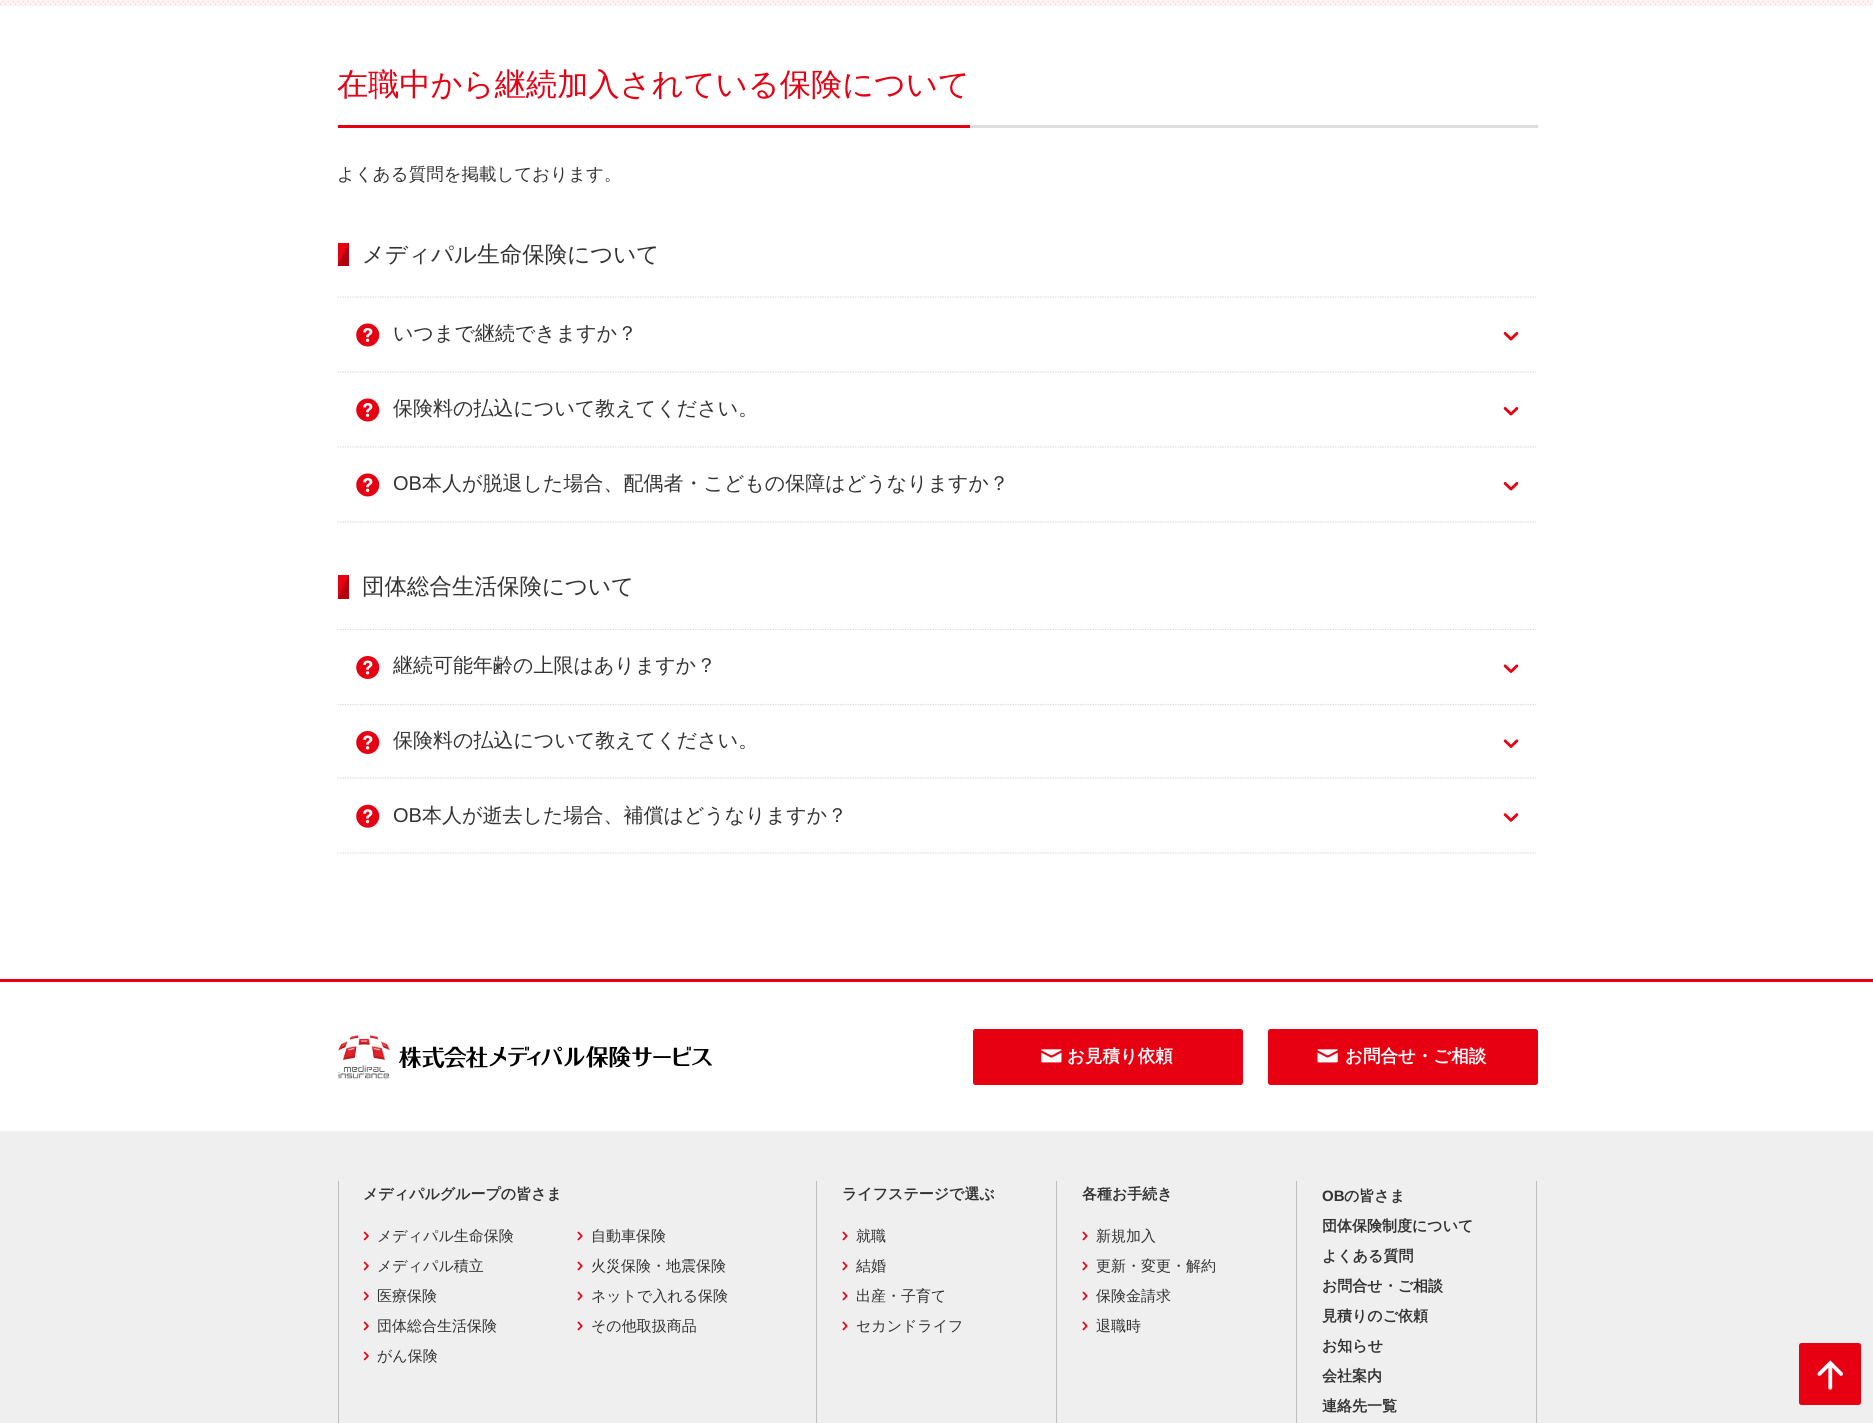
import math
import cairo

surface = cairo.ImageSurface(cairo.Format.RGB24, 1873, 1423)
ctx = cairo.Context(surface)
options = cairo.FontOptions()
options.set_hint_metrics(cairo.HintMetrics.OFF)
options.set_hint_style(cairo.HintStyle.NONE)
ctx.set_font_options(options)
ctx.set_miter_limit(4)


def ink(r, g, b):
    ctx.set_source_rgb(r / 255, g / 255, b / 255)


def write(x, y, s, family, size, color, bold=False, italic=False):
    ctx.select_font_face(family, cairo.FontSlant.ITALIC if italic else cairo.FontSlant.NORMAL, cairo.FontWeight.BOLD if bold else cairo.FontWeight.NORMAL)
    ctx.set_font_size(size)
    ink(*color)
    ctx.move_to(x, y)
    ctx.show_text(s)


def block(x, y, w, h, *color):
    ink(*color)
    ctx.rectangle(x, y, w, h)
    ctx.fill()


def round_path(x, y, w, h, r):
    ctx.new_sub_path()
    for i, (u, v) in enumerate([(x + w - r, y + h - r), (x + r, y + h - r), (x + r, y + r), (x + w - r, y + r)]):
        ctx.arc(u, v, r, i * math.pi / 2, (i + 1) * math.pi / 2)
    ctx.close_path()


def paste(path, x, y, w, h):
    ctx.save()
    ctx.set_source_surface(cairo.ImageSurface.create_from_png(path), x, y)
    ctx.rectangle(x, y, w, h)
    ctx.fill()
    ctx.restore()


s1 = dict(family="WenQuanYi Zen Hei Medium", size=31.25, color=(230, 0, 18))
s2 = dict(family="WenQuanYi Zen Hei Medium", size=17.5, color=(51, 51, 51))
s3 = dict(family="WenQuanYi Zen Hei Medium", size=22.5, color=(51, 51, 51))
s4 = dict(family="WenQuanYi Zen Hei Medium", size=20, color=(51, 51, 51))
s5 = dict(family="Liberation Sans", size=20, color=(51, 51, 51))
s6 = dict(family="WenQuanYi Zen Hei", size=17.5, color=(255, 255, 255), bold=True)
s7 = dict(family="WenQuanYi Zen Hei", size=15, color=(51, 51, 51), bold=True)
s8 = dict(family="WenQuanYi Zen Hei Medium", size=15, color=(51, 51, 51))
s9 = dict(family="Liberation Sans", size=15, color=(51, 51, 51), bold=True)

ink(255, 255, 255)
ctx.paint()
block(0, 0, 1873, 6, 255, 243, 244)
paste("pic1.png", 0, 1, 1873, 4)
block(970, 125, 568, 3, 221, 221, 221)
block(338, 125, 632, 3, 230, 0, 18)
write(337, 95, "在職中から継続加入されている保険について", **s1)
write(337, 180, "よくある質問を掲載しております。", **s2)
block(338, 243, 11, 22, 230, 0, 18)
ink(179, 0, 14)
ctx.new_path()
ctx.move_to(349, 266)
ctx.line_to(337.5, 266)
ctx.line_to(349, 242.5)
ctx.close_path()
ctx.fill()
write(362, 262, "メディパル生命保険について", **s3)
ctx.new_path()
ctx.move_to(337.5, 297)
ctx.line_to(1537.5, 297)
ink(218, 216, 216)
ctx.set_line_width(1.2)
ctx.set_dash([1.25, 1.25])
ctx.stroke()
ctx.new_path()
ctx.move_to(337.5, 372)
ctx.line_to(1537.5, 372)
ctx.stroke()
paste("pic2.png", 356, 323, 24, 24)
write(393, 340, "いつまで継続できますか？", **s4)
paste("pic3.png", 1503, 332, 16, 9)
ctx.new_path()
ctx.move_to(337.5, 447)
ctx.line_to(1537.5, 447)
ink(218, 216, 216)
ctx.stroke()
paste("pic2.png", 356, 398, 24, 24)
write(393, 415, "保険料の払込について教えてください。", **s4)
paste("pic3.png", 1503, 407, 16, 9)
ctx.new_path()
ctx.move_to(337.5, 522)
ctx.line_to(1537.5, 522)
ink(218, 216, 216)
ctx.stroke()
paste("pic2.png", 356, 473, 24, 24)
write(393, 490, "OB", **s5)
write(422, 490, "本人が脱退した場合、配偶者・こどもの保障はどうなりますか？", **s4)
paste("pic3.png", 1503, 482, 16, 9)
block(338, 575, 11, 23, 230, 0, 18)
ink(179, 0, 14)
ctx.new_path()
ctx.move_to(349, 599)
ctx.line_to(337.5, 599)
ctx.line_to(349, 575)
ctx.close_path()
ctx.fill()
write(362, 594, "団体総合生活保険について", **s3)
ctx.new_path()
ctx.move_to(337.5, 629.5)
ctx.line_to(1537.5, 629.5)
ink(218, 216, 216)
ctx.stroke()
ctx.new_path()
ctx.move_to(337.5, 704.5)
ctx.line_to(1537.5, 704.5)
ctx.stroke()
paste("pic4.png", 356, 656, 24, 23)
write(393, 672, "継続可能年齢の上限はありますか？", **s4)
paste("pic5.png", 1503, 664, 16, 9)
ctx.new_path()
ctx.move_to(337.5, 778)
ctx.line_to(1537.5, 778)
ink(218, 216, 216)
ctx.stroke()
paste("pic4.png", 356, 731, 24, 23)
write(393, 747, "保険料の払込について教えてください。", **s4)
paste("pic5.png", 1503, 739, 16, 9)
ctx.new_path()
ctx.move_to(337.5, 853)
ctx.line_to(1537.5, 853)
ink(218, 216, 216)
ctx.stroke()
paste("pic6.png", 356, 804, 24, 24)
write(393, 822, "OB", **s5)
write(422, 822, "本人が逝去した場合、補償はどうなりますか？", **s4)
paste("pic7.png", 1503, 813, 16, 9)
block(0, 979, 1873, 3, 230, 0, 18)
paste("pic8.png", 338, 1035, 375, 44)
round_path(973, 1029, 270, 56, 2.5)
ctx.fill()
paste("pic9.png", 1041, 1049, 21, 14)
write(1067, 1062, "お見積り依頼", **s6)
ink(230, 0, 18)
round_path(1268, 1029, 270, 56, 2.5)
ctx.fill()
paste("pic10.png", 1317, 1049, 21, 14)
write(1345, 1062, "お問合せ・ご相談", **s6)
block(0, 1131, 1873, 292, 239, 239, 239)
block(816, 1181, 1, 242, 193, 190, 190)
block(338, 1181, 1, 242, 193, 190, 190)
write(363, 1199, "メディパルグループの皆さま", **s7)
paste("pic11.png", 363, 1231, 6, 10)
write(377, 1241, "メディパル生命保険", **s8)
paste("pic11.png", 363, 1261, 6, 10)
write(377, 1271, "メディパル積立", **s8)
paste("pic11.png", 363, 1291, 6, 10)
write(377, 1301, "医療保険", **s8)
paste("pic11.png", 363, 1321, 6, 10)
write(377, 1331, "団体総合生活保険", **s8)
paste("pic11.png", 363, 1351, 6, 10)
write(377, 1361, "がん保険", **s8)
paste("pic12.png", 577, 1231, 6, 10)
write(591, 1241, "自動車保険", **s8)
paste("pic12.png", 577, 1261, 6, 10)
write(591, 1271, "火災保険・地震保険", **s8)
paste("pic12.png", 577, 1291, 6, 10)
write(591, 1301, "ネットで入れる保険", **s8)
paste("pic12.png", 577, 1321, 6, 10)
write(591, 1331, "その他取扱商品", **s8)
block(1056, 1181, 1, 242, 193, 190, 190)
write(842, 1199, "ライフステージで選ぶ", **s7)
paste("pic12.png", 842, 1231, 6, 10)
write(856, 1241, "就職", **s8)
paste("pic12.png", 842, 1261, 6, 10)
write(856, 1271, "結婚", **s8)
paste("pic12.png", 842, 1291, 6, 10)
write(856, 1301, "出産・子育て", **s8)
paste("pic12.png", 842, 1321, 6, 10)
write(856, 1331, "セカンドライフ", **s8)
block(1296, 1181, 1, 242, 193, 190, 190)
write(1082, 1199, "各種お手続き", **s7)
paste("pic12.png", 1082, 1231, 6, 10)
write(1096, 1241, "新規加入", **s8)
paste("pic12.png", 1082, 1261, 6, 10)
write(1096, 1271, "更新・変更・解約", **s8)
paste("pic12.png", 1082, 1291, 6, 10)
write(1096, 1301, "保険金請求", **s8)
paste("pic12.png", 1082, 1321, 6, 10)
write(1096, 1331, "退職時", **s8)
block(1536, 1181, 1, 242, 193, 190, 190)
write(1322, 1201, "OB", **s9)
write(1344, 1201, "の皆さま", **s7)
write(1322, 1231, "団体保険制度について", **s7)
write(1322, 1261, "よくある質問", **s7)
write(1322, 1291, "お問合せ・ご相談", **s7)
write(1322, 1321, "見積りのご依頼", **s7)
write(1322, 1351, "お知らせ", **s7)
write(1322, 1381, "会社案内", **s7)
write(1322, 1411, "連絡先一覧", **s7)
ink(230, 0, 18)
round_path(1799, 1343, 62, 62, 2.5)
ctx.fill()
paste("pic13.png", 1817, 1360, 26, 30)
surface.write_to_png("screenshot.png")
